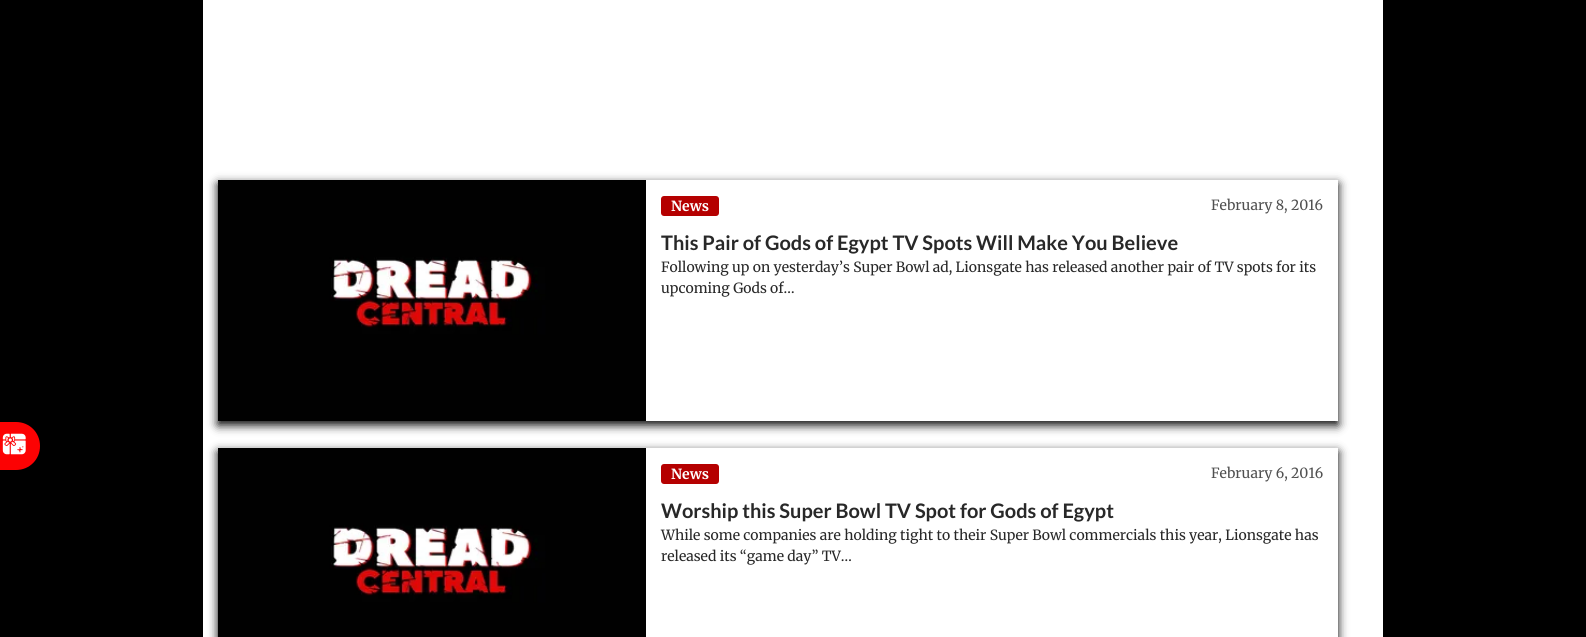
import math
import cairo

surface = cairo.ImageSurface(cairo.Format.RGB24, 1586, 637)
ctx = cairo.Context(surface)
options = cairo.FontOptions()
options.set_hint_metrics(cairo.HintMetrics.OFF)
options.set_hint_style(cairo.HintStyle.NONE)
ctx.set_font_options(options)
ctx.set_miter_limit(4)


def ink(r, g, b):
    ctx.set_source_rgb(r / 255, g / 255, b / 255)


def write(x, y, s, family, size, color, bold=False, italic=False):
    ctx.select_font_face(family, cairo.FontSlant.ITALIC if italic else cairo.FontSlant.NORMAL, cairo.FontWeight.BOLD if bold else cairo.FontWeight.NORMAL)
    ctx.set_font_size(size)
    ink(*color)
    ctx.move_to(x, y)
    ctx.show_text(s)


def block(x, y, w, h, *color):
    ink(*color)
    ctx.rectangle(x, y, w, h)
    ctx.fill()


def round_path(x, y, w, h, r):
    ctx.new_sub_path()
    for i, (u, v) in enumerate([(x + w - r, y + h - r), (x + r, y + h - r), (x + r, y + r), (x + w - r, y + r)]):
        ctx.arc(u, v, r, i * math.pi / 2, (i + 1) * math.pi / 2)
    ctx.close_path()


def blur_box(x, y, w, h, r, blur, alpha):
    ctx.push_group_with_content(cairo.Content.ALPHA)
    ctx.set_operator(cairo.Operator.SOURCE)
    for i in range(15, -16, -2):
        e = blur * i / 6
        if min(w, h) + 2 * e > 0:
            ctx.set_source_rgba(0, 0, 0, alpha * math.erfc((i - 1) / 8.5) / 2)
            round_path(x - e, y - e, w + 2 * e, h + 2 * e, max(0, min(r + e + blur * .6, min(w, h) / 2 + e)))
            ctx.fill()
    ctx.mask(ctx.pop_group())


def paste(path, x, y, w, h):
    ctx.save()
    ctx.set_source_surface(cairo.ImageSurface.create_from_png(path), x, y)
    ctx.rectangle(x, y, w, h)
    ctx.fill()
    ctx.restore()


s1 = dict(family="Merriweather Light", size=14, color=(255, 255, 255))
s2 = dict(family="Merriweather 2 Light", size=14, color=(80, 80, 80))
s3 = dict(family="Lato", size=20, color=(40, 40, 40), bold=True)
s4 = dict(family="Merriweather 2 Light", size=14, color=(40, 40, 40))

ink(0, 0, 0)
ctx.paint()
ink(252, 2, 3)
ctx.new_path()
ctx.move_to(-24, 422)
ctx.line_to(16, 422)
ctx.curve_to(29.5, 422, 40, 432.5, 40, 446)
ctx.curve_to(40, 459.5, 29.5, 470, 16, 470)
ctx.line_to(-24, 470)
ctx.close_path()
ctx.fill()
paste("pic1.png", 2, 433, 24, 22)
block(203, 0, 1180, 637, 255, 255, 255)
ctx.save()
ctx.set_fill_rule(cairo.FillRule.EVEN_ODD)
ctx.new_path()
ctx.move_to(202, 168)
ctx.line_to(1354, 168)
ctx.line_to(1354, 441)
ctx.line_to(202, 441)
ctx.close_path()
ctx.move_to(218, 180)
ctx.line_to(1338, 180)
ctx.line_to(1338, 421)
ctx.line_to(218, 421)
ctx.close_path()
ctx.clip()
ink(0, 0, 0)
blur_box(218, 184, 1120, 241, 0, 5, 1)
ctx.restore()
paste("pic2.png", 218, 180, 428, 241)
ink(181, 0, 0)
round_path(661, 196, 58, 20, 3)
ctx.fill()
write(671, 211, "News", **s1)
write(1211, 210, "February 8, 2016", **s2)
write(661, 250, "This Pair of Gods of Egypt TV Spots Will Make You Believe", **s3)
write(661, 272, "Following up on yesterday’s Super Bowl ad, Lionsgate has released another pair of TV spots for its", **s4)
write(661, 293, "upcoming Gods of…", **s4)
ctx.save()
ctx.set_fill_rule(cairo.FillRule.EVEN_ODD)
ctx.new_path()
ctx.move_to(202, 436)
ctx.line_to(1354, 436)
ctx.line_to(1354, 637)
ctx.line_to(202, 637)
ctx.close_path()
ctx.move_to(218, 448)
ctx.line_to(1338, 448)
ctx.line_to(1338, 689)
ctx.line_to(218, 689)
ctx.close_path()
ctx.clip()
ink(0, 0, 0)
blur_box(218, 452, 1120, 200, 0, 5, 1)
ctx.restore()
paste("pic3.png", 218, 448, 428, 189)
ink(181, 0, 0)
round_path(661, 464, 58, 20, 3)
ctx.fill()
write(671, 479, "News", **s1)
write(1211, 478, "February 6, 2016", **s2)
write(661, 518, "Worship this Super Bowl TV Spot for Gods of Egypt", **s3)
write(661, 540, "While some companies are holding tight to their Super Bowl commercials this year, Lionsgate has", **s4)
write(661, 561, "released its “game day” TV…", **s4)
surface.write_to_png("screenshot.png")
